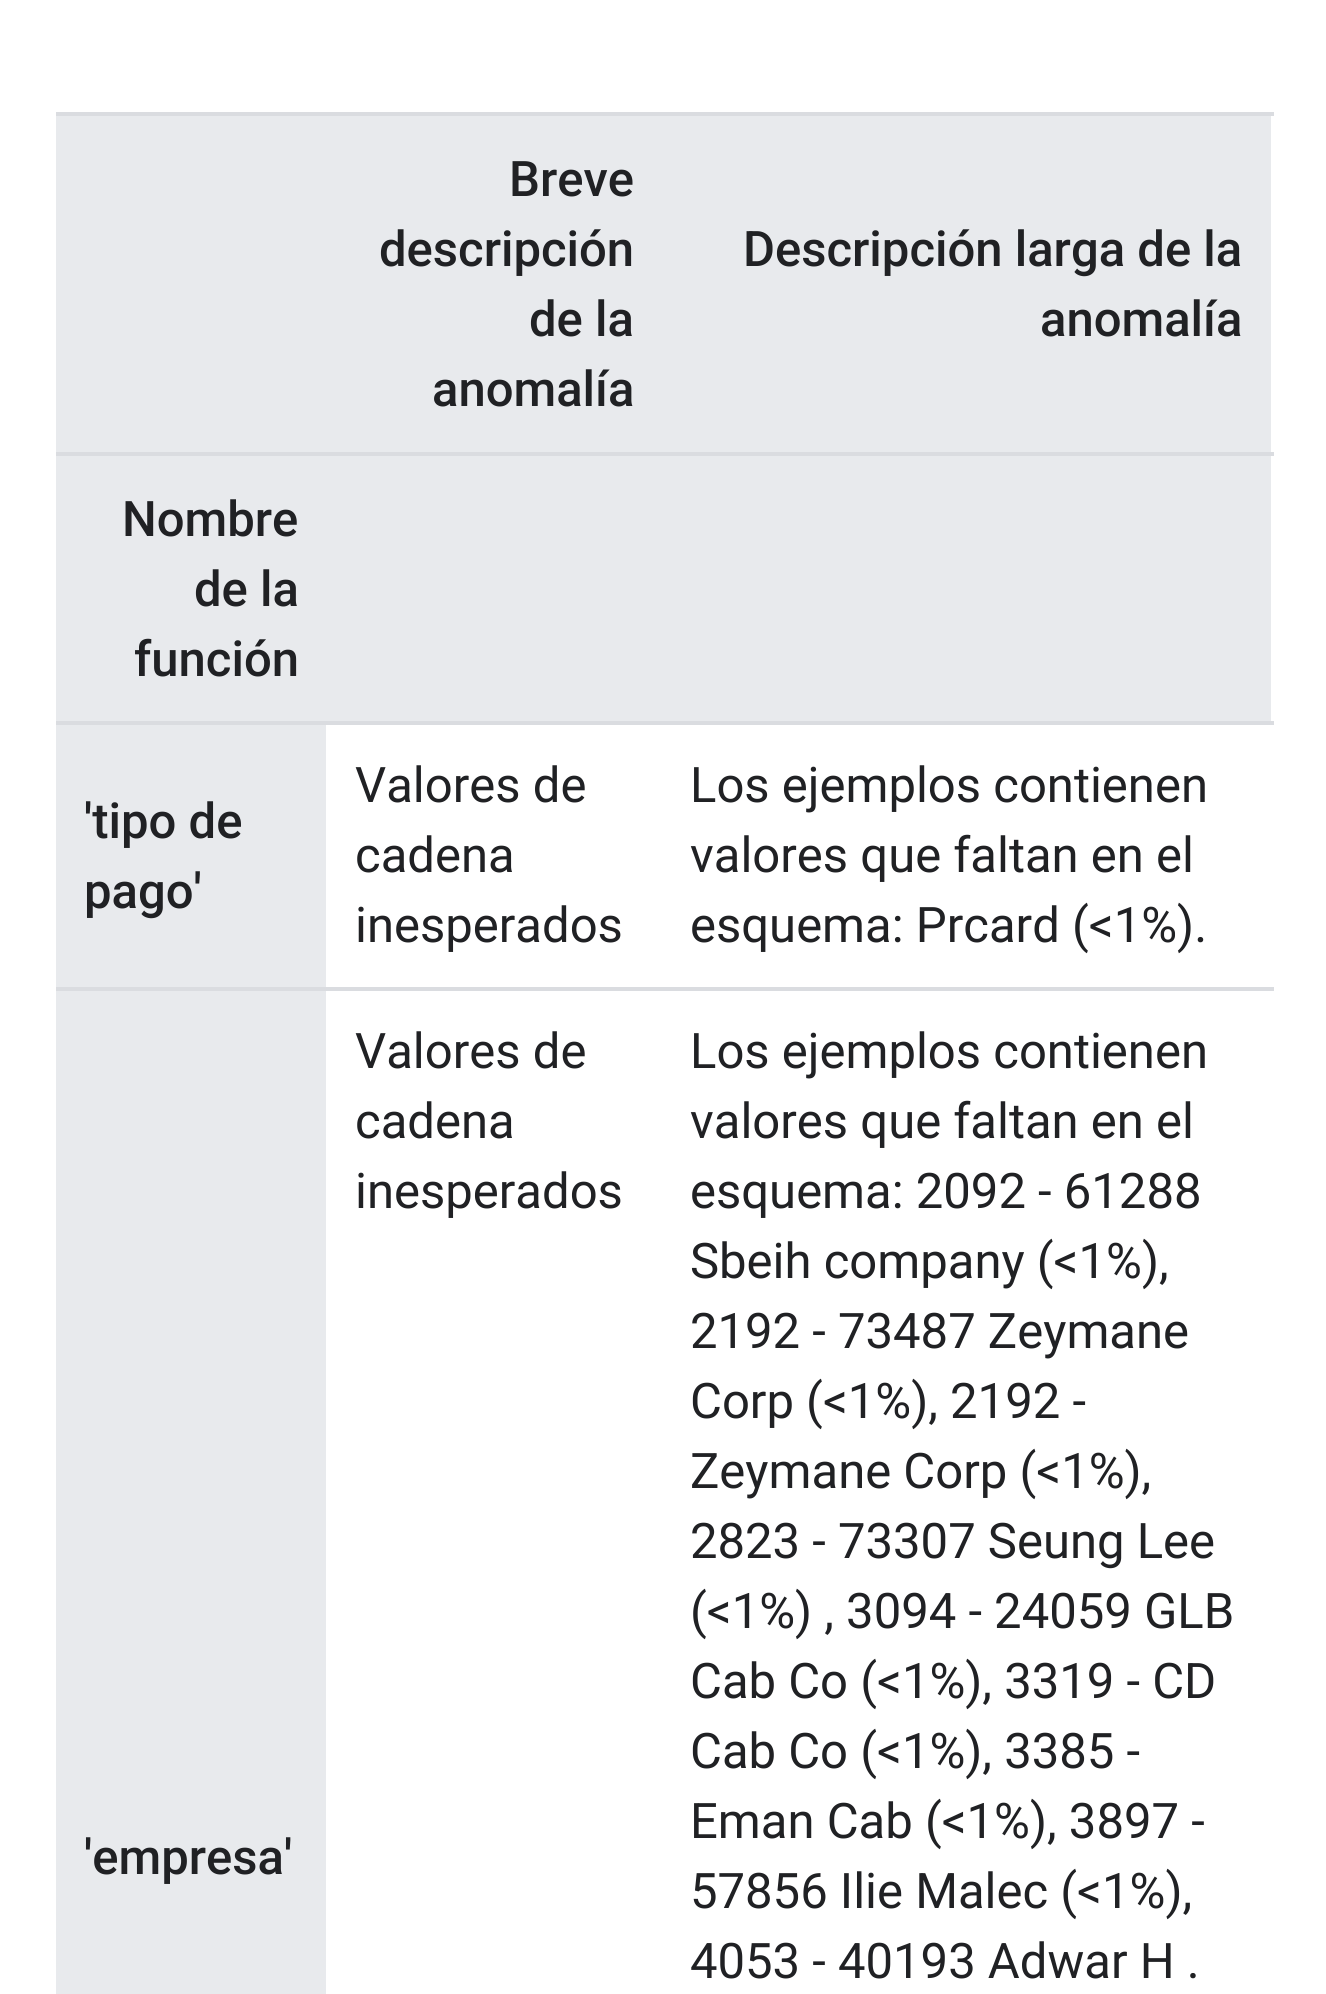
import math
import cairo

surface = cairo.ImageSurface(cairo.Format.RGB24, 1326, 1994)
ctx = cairo.Context(surface)
options = cairo.FontOptions()
options.set_hint_metrics(cairo.HintMetrics.OFF)
options.set_hint_style(cairo.HintStyle.NONE)
ctx.set_font_options(options)
ctx.set_miter_limit(4)


def ink(r, g, b):
    ctx.set_source_rgb(r / 255, g / 255, b / 255)


def write(x, y, s, family, size, color, bold=False, italic=False):
    ctx.select_font_face(family, cairo.FontSlant.ITALIC if italic else cairo.FontSlant.NORMAL, cairo.FontWeight.BOLD if bold else cairo.FontWeight.NORMAL)
    ctx.set_font_size(size)
    ink(*color)
    ctx.move_to(x, y)
    ctx.show_text(s)


def block(x, y, w, h, *color):
    ink(*color)
    ctx.rectangle(x, y, w, h)
    ctx.fill()


s1 = dict(family="Roboto Medium", size=49, color=(32, 33, 36))
s2 = dict(family="Roboto", size=49, color=(32, 33, 36))

ink(255, 255, 255)
ctx.paint()
block(56, 112, 1218, 4, 218, 220, 224)
block(56, 452, 1218, 4, 218, 220, 224)
block(56, 116, 1215, 336, 232, 234, 237)
write(509, 196, "Breve", **s1)
write(379, 266, "descripción", **s1)
write(529, 336, "de la", **s1)
write(432, 406, "anomalía", **s1)
write(743, 266, "Descripción larga de la", **s1)
write(1040, 336, "anomalía", **s1)
block(56, 456, 1215, 265, 232, 234, 237)
write(122, 536, "Nombre", **s1)
write(194, 606, "de la", **s1)
write(134, 676, "función", **s1)
block(56, 721, 1218, 4, 218, 220, 224)
block(56, 987, 1218, 4, 218, 220, 224)
block(56, 725, 270, 262, 232, 234, 237)
write(84, 838, "'tipo de", **s1)
write(84, 908, "pago'", **s1)
write(355, 802, "Valores de", **s2)
write(355, 872, "cadena", **s2)
write(355, 942, "inesperados", **s2)
write(690, 802, "Los ejemplos contienen", **s2)
write(690, 872, "valores que faltan en el", **s2)
write(690, 942, "esquema: Prcard (<1%).", **s2)
block(56, 991, 270, 1003, 232, 234, 237)
write(84, 1874, "'empresa'", **s1)
write(355, 1068, "Valores de", **s2)
write(355, 1138, "cadena", **s2)
write(355, 1208, "inesperados", **s2)
write(690, 1068, "Los ejemplos contienen", **s2)
write(690, 1138, "valores que faltan en el", **s2)
write(690, 1208, "esquema: 2092 - 61288", **s2)
write(690, 1278, "Sbeih company (<1%),", **s2)
write(690, 1348, "2192 - 73487 Zeymane", **s2)
write(690, 1418, "Corp (<1%), 2192 -", **s2)
write(690, 1488, "Zeymane Corp (<1%),", **s2)
write(690, 1558, "2823 - 73307 Seung Lee", **s2)
write(690, 1628, "(<1%) , 3094 - 24059 GLB", **s2)
write(690, 1698, "Cab Co (<1%), 3319 - CD", **s2)
write(690, 1768, "Cab Co (<1%), 3385 -", **s2)
write(690, 1838, "Eman Cab (<1%), 3897 -", **s2)
write(690, 1908, "57856 Ilie Malec (<1%),", **s2)
write(690, 1978, "4053 - 40193 Adwar H .", **s2)
surface.write_to_png("screenshot.png")
